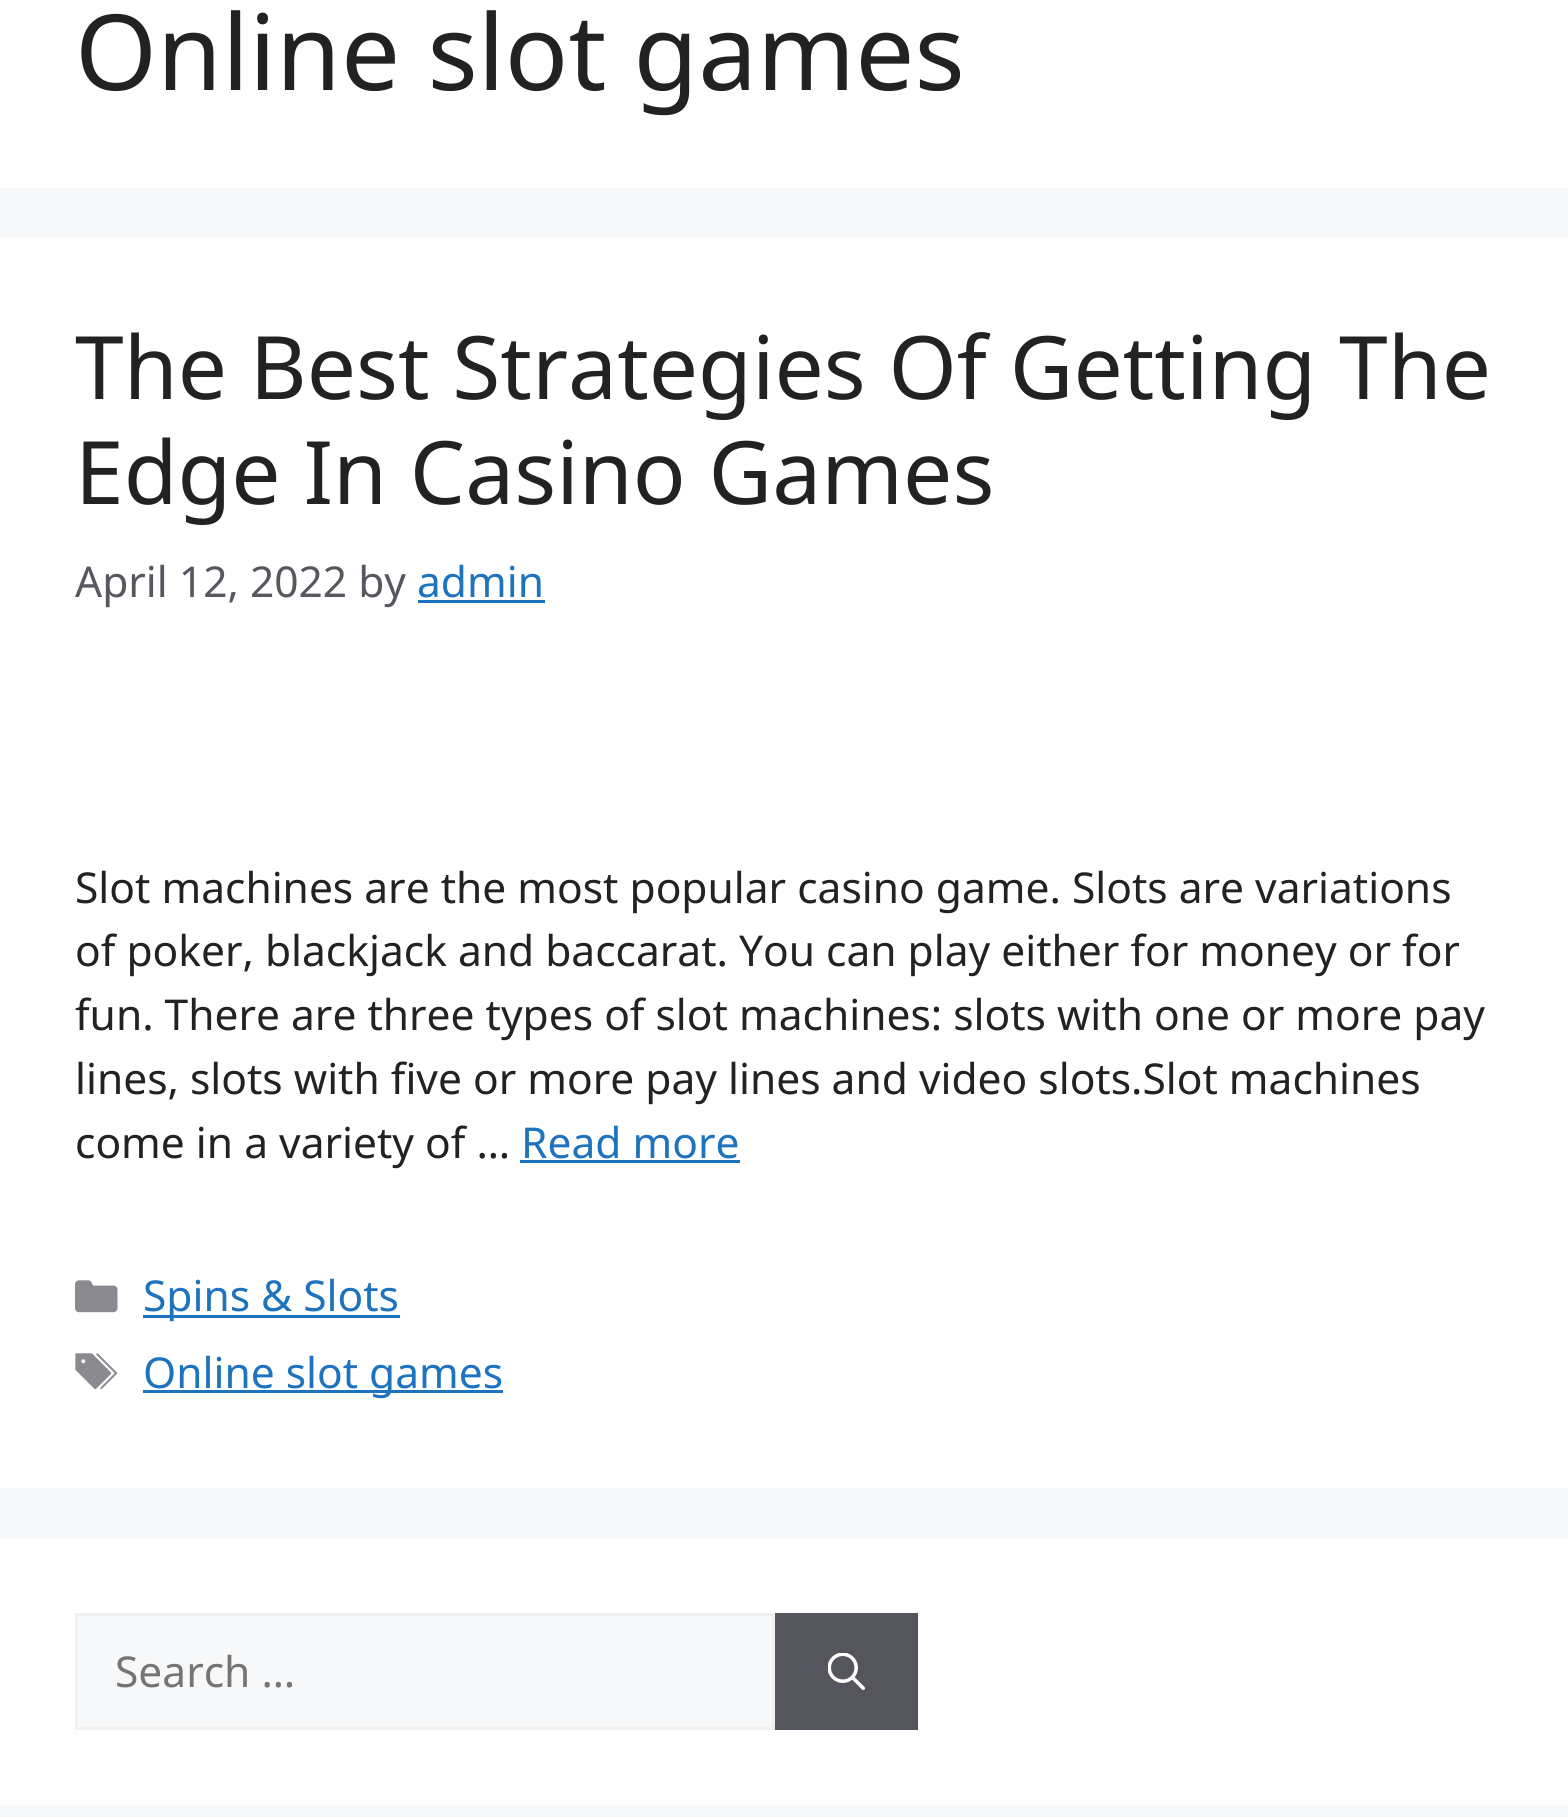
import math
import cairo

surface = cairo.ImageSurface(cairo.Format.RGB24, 1568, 1817)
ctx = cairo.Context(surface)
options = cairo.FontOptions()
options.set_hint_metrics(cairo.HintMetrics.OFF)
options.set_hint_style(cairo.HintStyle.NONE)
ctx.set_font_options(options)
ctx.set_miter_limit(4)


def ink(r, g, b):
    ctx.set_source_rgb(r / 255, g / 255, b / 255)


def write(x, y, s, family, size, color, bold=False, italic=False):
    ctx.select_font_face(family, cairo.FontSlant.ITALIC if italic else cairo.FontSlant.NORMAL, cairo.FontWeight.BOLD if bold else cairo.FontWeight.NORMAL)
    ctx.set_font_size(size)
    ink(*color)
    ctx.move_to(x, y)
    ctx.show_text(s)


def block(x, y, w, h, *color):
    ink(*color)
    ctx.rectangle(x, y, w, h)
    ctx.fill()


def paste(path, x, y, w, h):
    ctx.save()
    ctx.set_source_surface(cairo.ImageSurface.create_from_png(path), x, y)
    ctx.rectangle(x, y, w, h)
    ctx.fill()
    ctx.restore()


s1 = dict(family="Noto Sans", size=105, color=(34, 34, 34))
s2 = dict(family="Noto Sans", size=87.5, color=(34, 34, 34))
s3 = dict(family="Noto Sans", size=42.5, color=(87, 87, 96))
s4 = dict(family="Noto Sans", size=42.5, color=(30, 115, 190))
s5 = dict(family="Noto Sans", size=42.5, color=(34, 34, 34))
s6 = dict(family="Noto Sans", size=42.5, color=(117, 117, 117))

ink(247, 248, 249)
ctx.paint()
block(0, 0, 1568, 188, 255, 255, 255)
write(75, 90, "Online slot games", **s1)
block(0, 238, 1568, 1250, 255, 255, 255)
write(75, 399, "The Best Strategies Of Getting The", **s2)
write(75, 504, "Edge In Casino Games", **s2)
write(75, 597, "April 12, 2022 by", **s3)
write(417, 597, "admin", **s4)
block(418, 600, 127, 3, 30, 115, 190)
write(75, 903, "Slot machines are the most popular casino game. Slots are variations", **s5)
write(75, 966, "of poker, blackjack and baccarat. You can play either for money or for", **s5)
write(75, 1030, "fun. There are three types of slot machines: slots with one or more pay", **s5)
write(75, 1094, "lines, slots with five or more pay lines and video slots.Slot machines", **s5)
write(75, 1158, "come in a variety of …", **s5)
write(521, 1158, "Read more", **s4)
block(520, 1160, 220, 3, 30, 115, 190)
paste("pic1.png", 75, 1280, 43, 33)
block(143, 1315, 257, 3, 30, 115, 190)
write(143, 1311, "Spins & Slots", **s4)
paste("pic2.png", 75, 1353, 43, 37)
block(143, 1390, 360, 3, 30, 115, 190)
write(143, 1388, "Online slot games", **s4)
block(0, 1538, 1568, 267, 255, 255, 255)
ink(247, 248, 249)
ctx.rectangle(76.5, 1614.5, 697, 114)
ctx.fill_preserve()
ink(240, 240, 240)
ctx.set_line_width(3)
ctx.stroke()
write(115, 1687, "Search …", **s6)
block(775, 1613, 143, 117, 85, 85, 94)
paste("pic3.png", 828, 1653, 37, 37)
surface.write_to_png("screenshot.png")
